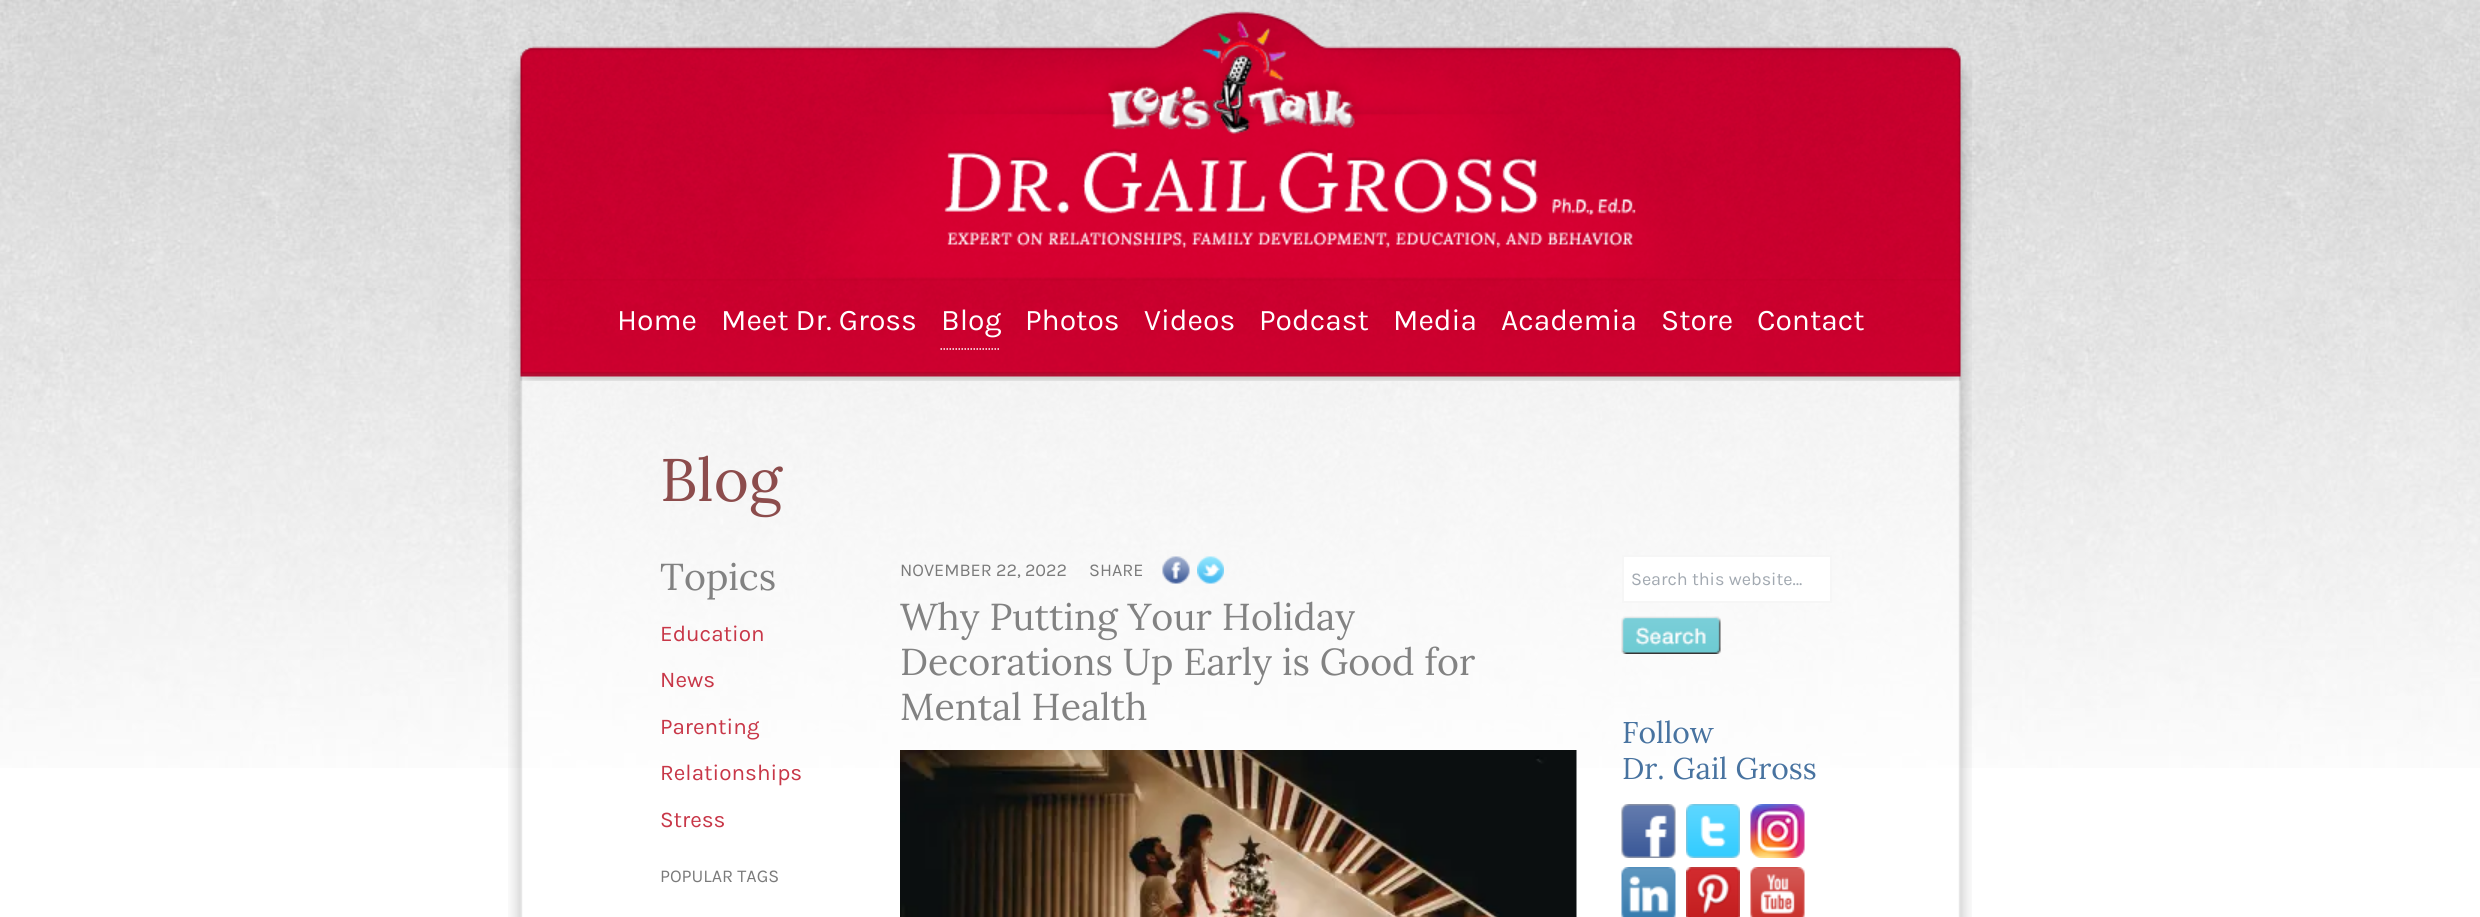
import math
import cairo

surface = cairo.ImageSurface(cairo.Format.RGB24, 2480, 917)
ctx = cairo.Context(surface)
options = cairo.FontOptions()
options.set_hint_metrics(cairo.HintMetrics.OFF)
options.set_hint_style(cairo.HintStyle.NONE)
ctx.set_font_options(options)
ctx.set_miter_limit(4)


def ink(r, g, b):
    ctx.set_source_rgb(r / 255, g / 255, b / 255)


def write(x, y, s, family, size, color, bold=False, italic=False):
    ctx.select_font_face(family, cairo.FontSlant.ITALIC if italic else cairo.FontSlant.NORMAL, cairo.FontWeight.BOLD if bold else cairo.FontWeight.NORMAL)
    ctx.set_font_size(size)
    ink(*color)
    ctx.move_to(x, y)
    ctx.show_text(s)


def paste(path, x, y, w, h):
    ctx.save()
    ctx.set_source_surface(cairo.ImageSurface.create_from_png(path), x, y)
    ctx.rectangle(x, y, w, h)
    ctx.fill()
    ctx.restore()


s1 = dict(family="Karla", size=30, color=(255, 255, 255))
s2 = dict(family="Lora", size=60, color=(140, 76, 76))
s3 = dict(family="Lora", size=37.5, color=(130, 130, 130))
s4 = dict(family="Karla", size=22.5, color=(200, 55, 72))
s5 = dict(family="Karla", size=18, color=(122, 122, 122))
s6 = dict(family="Karla", size=18, color=(162, 169, 177))
s7 = dict(family="Lora", size=30, color=(72, 115, 160))

ink(255, 255, 255)
ctx.paint()
paste("pic1.png", 0, 0, 2480, 768)
paste("pic2.png", 509, 10, 1463, 371)
write(617, 330, "Home", **s1)
write(721, 330, "Meet Dr. Gross", **s1)
ctx.new_path()
ctx.move_to(940.5, 349)
ctx.line_to(1000.5, 349)
ctx.set_line_width(1.5)
ctx.set_dash([1.5, 1.5])
ctx.stroke()
write(941, 330, "Blog", **s1)
write(1025, 330, "Photos", **s1)
write(1144, 330, "Videos", **s1)
write(1259, 330, "Podcast", **s1)
write(1393, 330, "Media", **s1)
write(1501, 330, "Academia", **s1)
write(1661, 330, "Store", **s1)
write(1757, 330, "Contact", **s1)
paste("pic3.png", 508, 381, 1464, 536)
write(660, 501, "Blog", **s2)
write(660, 590, "Topics", **s3)
write(660, 641, "Education", **s4)
write(660, 687, "News", **s4)
write(660, 734, "Parenting", **s4)
write(660, 780, "Relationships", **s4)
write(660, 827, "Stress", **s4)
write(660, 882, "POPULAR TAGS", **s5)
write(900, 576, "NOVEMBER 22, 2022", **s5)
write(1089, 576, "SHARE", **s5)
paste("pic4.png", 1162, 556, 28, 28)
paste("pic5.png", 1197, 556, 27, 28)
write(900, 630, "Why Putting Your Holiday", **s3)
write(900, 675, "Decorations Up Early is Good for", **s3)
write(900, 720, "Mental Health", **s3)
paste("pic6.png", 900, 750, 677, 167)
ink(255, 255, 255)
ctx.rectangle(1623, 556, 208, 46)
ctx.fill_preserve()
ink(246, 246, 246)
ctx.set_line_width(2)
ctx.set_dash([])
ctx.stroke()
write(1631, 585, "Search this website…", **s6)
paste("pic7.png", 1621, 616, 100, 38)
write(1622, 743, "Follow", **s7)
write(1622, 779, "Dr. Gail Gross", **s7)
paste("pic8.png", 1621, 804, 55, 54)
paste("pic9.png", 1686, 804, 54, 54)
paste("pic10.png", 1750, 804, 55, 54)
paste("pic11.png", 1621, 867, 55, 50)
paste("pic12.png", 1686, 867, 54, 50)
paste("pic13.png", 1750, 867, 55, 50)
surface.write_to_png("screenshot.png")
